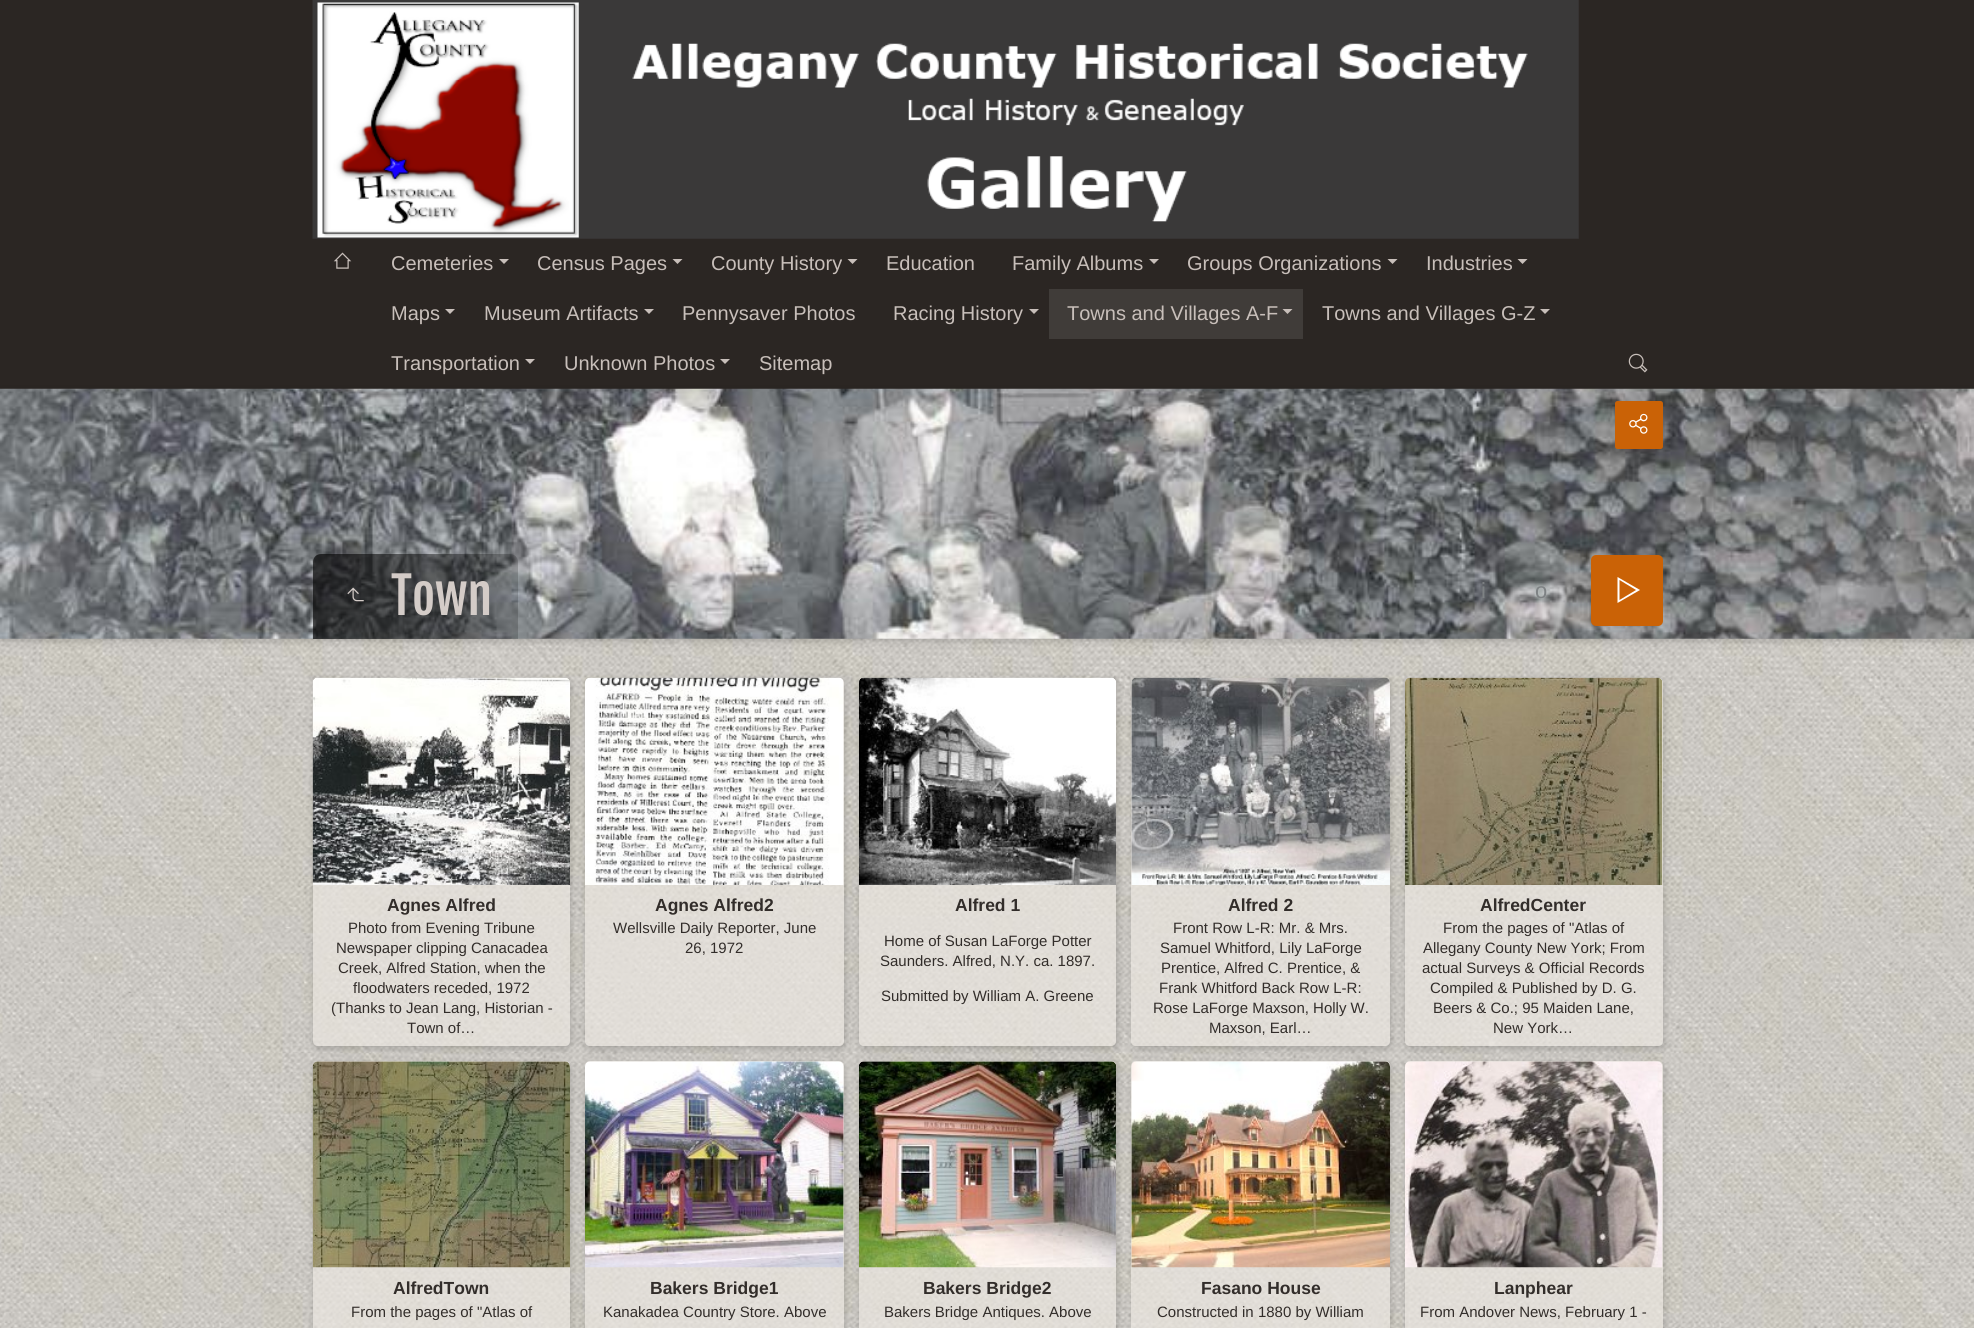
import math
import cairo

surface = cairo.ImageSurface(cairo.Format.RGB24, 1974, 1328)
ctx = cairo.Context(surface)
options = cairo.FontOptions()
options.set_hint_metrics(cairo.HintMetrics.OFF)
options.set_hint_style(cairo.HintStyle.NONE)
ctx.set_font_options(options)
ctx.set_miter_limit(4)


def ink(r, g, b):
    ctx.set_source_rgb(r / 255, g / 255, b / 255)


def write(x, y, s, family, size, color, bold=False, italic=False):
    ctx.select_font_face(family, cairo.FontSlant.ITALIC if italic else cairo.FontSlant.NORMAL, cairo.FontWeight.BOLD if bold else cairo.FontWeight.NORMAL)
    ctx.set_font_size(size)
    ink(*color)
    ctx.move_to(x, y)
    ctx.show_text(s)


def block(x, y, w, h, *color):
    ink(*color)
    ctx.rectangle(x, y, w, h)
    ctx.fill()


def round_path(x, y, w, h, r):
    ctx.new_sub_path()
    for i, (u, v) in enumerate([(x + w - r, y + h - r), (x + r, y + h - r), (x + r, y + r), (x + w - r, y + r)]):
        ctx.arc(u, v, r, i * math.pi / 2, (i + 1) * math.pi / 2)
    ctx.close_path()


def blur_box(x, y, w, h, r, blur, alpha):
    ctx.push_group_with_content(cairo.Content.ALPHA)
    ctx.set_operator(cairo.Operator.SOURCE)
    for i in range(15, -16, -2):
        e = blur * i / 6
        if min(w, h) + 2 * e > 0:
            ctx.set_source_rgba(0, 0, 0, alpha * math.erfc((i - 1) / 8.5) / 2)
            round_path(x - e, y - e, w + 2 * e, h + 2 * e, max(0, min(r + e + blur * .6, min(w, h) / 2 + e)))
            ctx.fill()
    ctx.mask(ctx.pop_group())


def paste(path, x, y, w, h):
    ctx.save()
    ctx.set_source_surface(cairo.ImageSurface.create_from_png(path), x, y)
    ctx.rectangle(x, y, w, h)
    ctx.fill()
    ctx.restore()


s1 = dict(family="Liberation Sans", size=20, color=(200, 191, 186))
s2 = dict(family="Fjalla One", size=50, color=(212, 204, 200))
s3 = dict(family="Liberation Sans", size=22, color=(126, 130, 132))
s4 = dict(family="Liberation Sans", size=17.5, color=(50, 45, 42), bold=True)
s5 = dict(family="Liberation Sans", size=15, color=(50, 45, 42))

ink(255, 255, 255)
ctx.paint()
paste("pic1.png", 0, 638, 1974, 690)
block(0, 0, 1974, 389, 43, 38, 35)
paste("pic2.png", 312, 0, 1267, 239)
paste("pic3.png", 333, 252, 19, 17)
write(391, 270, "Cemeteries", **s1)
ctx.new_path()
ctx.move_to(499, 259)
ctx.line_to(509, 259)
ctx.line_to(504, 264)
ctx.close_path()
ctx.fill()
write(537, 270, "Census Pages", **s1)
ctx.new_path()
ctx.move_to(672.5, 259)
ctx.line_to(682.5, 259)
ctx.line_to(677.5, 264)
ctx.close_path()
ctx.fill()
write(711, 270, "County History", **s1)
ctx.new_path()
ctx.move_to(847.5, 259)
ctx.line_to(857.5, 259)
ctx.line_to(852.5, 264)
ctx.close_path()
ctx.fill()
write(886, 270, "Education", **s1)
write(1012, 270, "Family Albums", **s1)
ctx.new_path()
ctx.move_to(1149, 259)
ctx.line_to(1159, 259)
ctx.line_to(1154, 264)
ctx.close_path()
ctx.fill()
write(1187, 270, "Groups Organizations", **s1)
ctx.new_path()
ctx.move_to(1387.5, 259)
ctx.line_to(1397.5, 259)
ctx.line_to(1392.5, 264)
ctx.close_path()
ctx.fill()
write(1426, 270, "Industries", **s1)
ctx.new_path()
ctx.move_to(1517.5, 259)
ctx.line_to(1527.5, 259)
ctx.line_to(1522.5, 264)
ctx.close_path()
ctx.fill()
write(391, 320, "Maps", **s1)
ctx.new_path()
ctx.move_to(445, 309)
ctx.line_to(455, 309)
ctx.line_to(450, 314)
ctx.close_path()
ctx.fill()
write(484, 320, "Museum Artifacts", **s1)
ctx.new_path()
ctx.move_to(644, 309)
ctx.line_to(654, 309)
ctx.line_to(649, 314)
ctx.close_path()
ctx.fill()
write(682, 320, "Pennysaver Photos", **s1)
write(893, 320, "Racing History", **s1)
ctx.new_path()
ctx.move_to(1029, 309)
ctx.line_to(1039, 309)
ctx.line_to(1034, 314)
ctx.close_path()
ctx.fill()
block(1049, 289, 254, 50, 64, 60, 57)
write(1067, 320, "Towns and Villages A-F", **s1)
ctx.new_path()
ctx.move_to(1282.5, 309)
ctx.line_to(1292.5, 309)
ctx.line_to(1287.5, 314)
ctx.close_path()
ctx.fill()
write(1322, 320, "Towns and Villages G-Z", **s1)
ctx.new_path()
ctx.move_to(1540, 309)
ctx.line_to(1550, 309)
ctx.line_to(1545, 314)
ctx.close_path()
ctx.fill()
write(391, 370, "Transportation", **s1)
ctx.new_path()
ctx.move_to(525, 359)
ctx.line_to(535, 359)
ctx.line_to(530, 364)
ctx.close_path()
ctx.fill()
write(564, 370, "Unknown Photos", **s1)
ctx.new_path()
ctx.move_to(720, 359)
ctx.line_to(730, 359)
ctx.line_to(725, 364)
ctx.close_path()
ctx.fill()
write(759, 370, "Sitemap", **s1)
paste("pic4.png", 1628, 353, 20, 20)
ink(0, 0, 0)
blur_box(1, 391, 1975, 250, 0, 4, 0.19)
paste("pic5.png", 0, 388, 1974, 251)
gradient = cairo.LinearGradient(313, 596, 518, 596)
gradient.add_color_stop_rgba(0, 0.031, 0.031, 0.031, 0.7)
gradient.add_color_stop_rgba(0.6, 0.031, 0.031, 0.031, 0.45)
gradient.add_color_stop_rgba(1, 0.031, 0.031, 0.031, 0.2)
ctx.set_source(gradient)
ctx.new_path()
ctx.move_to(321, 554)
ctx.line_to(510, 554)
ctx.curve_to(514.5, 554, 518, 557.5, 518, 562)
ctx.line_to(518, 639)
ctx.line_to(313, 639)
ctx.line_to(313, 562)
ctx.curve_to(313, 557.5, 316.5, 554, 321, 554)
ctx.close_path()
ctx.fill()
paste("pic6.png", 347, 587, 17, 15)
write(391, 615, "Town", **s2)
ink(202, 98, 6)
round_path(1615, 401, 48, 48, 2.5)
ctx.fill()
paste("pic7.png", 1629, 413, 19, 21)
write(1481, 598, "i", **s3)
write(1535, 598, "o", **s3)
ink(202, 98, 6)
round_path(1591, 555, 72, 71, 5)
ctx.fill()
ink(255, 255, 255)
ctx.new_path()
ctx.move_to(1619.5, 580)
ctx.line_to(1636, 590)
ctx.line_to(1619.5, 600)
ctx.close_path()
ctx.move_to(1617.5, 577)
ctx.line_to(1617.5, 603)
ctx.line_to(1640, 590)
ctx.close_path()
ctx.fill()
ctx.save()
ctx.set_fill_rule(cairo.FillRule.EVEN_ODD)
ctx.new_path()
ctx.move_to(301, 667)
ctx.line_to(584, 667)
ctx.line_to(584, 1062)
ctx.line_to(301, 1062)
ctx.close_path()
ctx.move_to(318, 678)
ctx.line_to(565, 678)
ctx.curve_to(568, 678, 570, 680, 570, 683)
ctx.line_to(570, 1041)
ctx.curve_to(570, 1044, 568, 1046, 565, 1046)
ctx.line_to(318, 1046)
ctx.curve_to(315, 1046, 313, 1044, 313, 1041)
ctx.line_to(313, 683)
ctx.curve_to(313, 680, 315, 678, 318, 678)
ctx.close_path()
ctx.clip()
ink(0, 0, 0)
blur_box(314, 680, 257, 369, 5, 4, 0.19)
ctx.restore()
ctx.set_source_rgba(0.922, 0.906, 0.882, 0.67)
round_path(313, 678, 257, 368, 5)
ctx.fill()
paste("pic8.png", 312, 677, 258, 208)
write(387, 911, "Agnes Alfred", **s4)
write(348, 933, "Photo from Evening Tribune", **s5)
write(336, 953, "Newspaper clipping Canacadea", **s5)
write(338, 973, "Creek, Alfred Station, when the", **s5)
write(353, 993, "floodwaters receded, 1972", **s5)
write(331, 1013, "(Thanks to Jean Lang, Historian -", **s5)
write(407, 1033, "Town of…", **s5)
ctx.save()
ctx.set_fill_rule(cairo.FillRule.EVEN_ODD)
ctx.new_path()
ctx.move_to(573, 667)
ctx.line_to(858, 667)
ctx.line_to(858, 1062)
ctx.line_to(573, 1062)
ctx.close_path()
ctx.move_to(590, 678)
ctx.line_to(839, 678)
ctx.curve_to(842, 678, 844, 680, 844, 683)
ctx.line_to(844, 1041)
ctx.curve_to(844, 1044, 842, 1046, 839, 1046)
ctx.line_to(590, 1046)
ctx.curve_to(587, 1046, 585, 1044, 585, 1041)
ctx.line_to(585, 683)
ctx.curve_to(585, 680, 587, 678, 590, 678)
ctx.close_path()
ctx.clip()
ink(0, 0, 0)
blur_box(586, 680, 259, 369, 5, 4, 0.19)
ctx.restore()
ctx.set_source_rgba(0.922, 0.906, 0.882, 0.67)
round_path(585, 678, 259, 368, 5)
ctx.fill()
paste("pic9.png", 585, 677, 259, 208)
write(655, 911, "Agnes Alfred2", **s4)
write(613, 933, "Wellsville Daily Reporter, June", **s5)
write(685, 953, "26, 1972", **s5)
ctx.save()
ctx.set_fill_rule(cairo.FillRule.EVEN_ODD)
ctx.new_path()
ctx.move_to(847, 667)
ctx.line_to(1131, 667)
ctx.line_to(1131, 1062)
ctx.line_to(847, 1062)
ctx.close_path()
ctx.move_to(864, 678)
ctx.line_to(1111, 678)
ctx.curve_to(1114, 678, 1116, 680, 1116, 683)
ctx.line_to(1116, 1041)
ctx.curve_to(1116, 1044, 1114, 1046, 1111, 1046)
ctx.line_to(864, 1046)
ctx.curve_to(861, 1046, 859, 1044, 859, 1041)
ctx.line_to(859, 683)
ctx.curve_to(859, 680, 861, 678, 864, 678)
ctx.close_path()
ctx.clip()
ink(0, 0, 0)
blur_box(860, 680, 258, 369, 5, 4, 0.19)
ctx.restore()
ctx.set_source_rgba(0.922, 0.906, 0.882, 0.67)
round_path(859, 678, 257, 368, 5)
ctx.fill()
paste("pic10.png", 859, 677, 257, 208)
write(955, 911, "Alfred 1", **s4)
write(884, 946, "Home of Susan LaForge Potter", **s5)
write(880, 966, "Saunders. Alfred, N.Y. ca. 1897.", **s5)
write(881, 1001, "Submitted by William A. Greene", **s5)
ctx.save()
ctx.set_fill_rule(cairo.FillRule.EVEN_ODD)
ctx.new_path()
ctx.move_to(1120, 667)
ctx.line_to(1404, 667)
ctx.line_to(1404, 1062)
ctx.line_to(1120, 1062)
ctx.close_path()
ctx.move_to(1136, 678)
ctx.line_to(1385, 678)
ctx.curve_to(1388, 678, 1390, 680, 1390, 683)
ctx.line_to(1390, 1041)
ctx.curve_to(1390, 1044, 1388, 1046, 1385, 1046)
ctx.line_to(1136, 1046)
ctx.curve_to(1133, 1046, 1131, 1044, 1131, 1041)
ctx.line_to(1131, 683)
ctx.curve_to(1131, 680, 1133, 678, 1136, 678)
ctx.close_path()
ctx.clip()
ink(0, 0, 0)
blur_box(1133, 680, 258, 369, 5, 4, 0.19)
ctx.restore()
ctx.set_source_rgba(0.922, 0.906, 0.882, 0.67)
round_path(1131, 678, 259, 368, 5)
ctx.fill()
paste("pic11.png", 1131, 677, 259, 208)
write(1228, 911, "Alfred 2", **s4)
write(1173, 933, "Front Row L-R: Mr. & Mrs.", **s5)
write(1160, 953, "Samuel Whitford, Lily LaForge", **s5)
write(1161, 973, "Prentice, Alfred C. Prentice, &", **s5)
write(1159, 993, "Frank Whitford Back Row L-R:", **s5)
write(1153, 1013, "Rose LaForge Maxson, Holly W.", **s5)
write(1209, 1033, "Maxson, Earl…", **s5)
ctx.save()
ctx.set_fill_rule(cairo.FillRule.EVEN_ODD)
ctx.new_path()
ctx.move_to(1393, 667)
ctx.line_to(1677, 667)
ctx.line_to(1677, 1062)
ctx.line_to(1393, 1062)
ctx.close_path()
ctx.move_to(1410, 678)
ctx.line_to(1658, 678)
ctx.curve_to(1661, 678, 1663, 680, 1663, 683)
ctx.line_to(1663, 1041)
ctx.curve_to(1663, 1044, 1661, 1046, 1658, 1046)
ctx.line_to(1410, 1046)
ctx.curve_to(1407, 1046, 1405, 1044, 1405, 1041)
ctx.line_to(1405, 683)
ctx.curve_to(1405, 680, 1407, 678, 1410, 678)
ctx.close_path()
ctx.clip()
ink(0, 0, 0)
blur_box(1406, 680, 258, 369, 5, 4, 0.19)
ctx.restore()
ctx.set_source_rgba(0.922, 0.906, 0.882, 0.67)
round_path(1405, 678, 258, 368, 5)
ctx.fill()
paste("pic12.png", 1405, 677, 258, 208)
write(1480, 911, "AlfredCenter", **s4)
write(1443, 933, "From the pages of \"Atlas of", **s5)
write(1423, 953, "Allegany County New York; From", **s5)
write(1422, 973, "actual Surveys & Official Records", **s5)
write(1430, 993, "Compiled & Published by D. G.", **s5)
write(1433, 1013, "Beers & Co.; 95 Maiden Lane,", **s5)
write(1493, 1033, "New York…", **s5)
ctx.save()
ctx.set_fill_rule(cairo.FillRule.EVEN_ODD)
ctx.new_path()
ctx.move_to(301, 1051)
ctx.line_to(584, 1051)
ctx.line_to(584, 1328)
ctx.line_to(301, 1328)
ctx.close_path()
ctx.move_to(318, 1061)
ctx.line_to(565, 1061)
ctx.curve_to(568, 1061, 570, 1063, 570, 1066)
ctx.line_to(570, 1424)
ctx.curve_to(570, 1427, 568, 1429, 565, 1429)
ctx.line_to(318, 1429)
ctx.curve_to(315, 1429, 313, 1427, 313, 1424)
ctx.line_to(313, 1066)
ctx.curve_to(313, 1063, 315, 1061, 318, 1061)
ctx.close_path()
ctx.clip()
ink(0, 0, 0)
blur_box(314, 1064, 257, 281, 5, 4, 0.19)
ctx.restore()
ctx.set_source_rgba(0.922, 0.906, 0.882, 0.67)
round_path(313, 1061, 257, 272, 5)
ctx.fill()
paste("pic13.png", 312, 1061, 258, 207)
write(393, 1294, "AlfredTown", **s4)
write(351, 1317, "From the pages of \"Atlas of", **s5)
ctx.save()
ctx.set_fill_rule(cairo.FillRule.EVEN_ODD)
ctx.new_path()
ctx.move_to(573, 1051)
ctx.line_to(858, 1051)
ctx.line_to(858, 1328)
ctx.line_to(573, 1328)
ctx.close_path()
ctx.move_to(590, 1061)
ctx.line_to(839, 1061)
ctx.curve_to(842, 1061, 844, 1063, 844, 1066)
ctx.line_to(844, 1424)
ctx.curve_to(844, 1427, 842, 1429, 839, 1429)
ctx.line_to(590, 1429)
ctx.curve_to(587, 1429, 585, 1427, 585, 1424)
ctx.line_to(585, 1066)
ctx.curve_to(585, 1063, 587, 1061, 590, 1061)
ctx.close_path()
ctx.clip()
ink(0, 0, 0)
blur_box(586, 1064, 259, 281, 5, 4, 0.19)
ctx.restore()
ctx.set_source_rgba(0.922, 0.906, 0.882, 0.67)
round_path(585, 1061, 259, 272, 5)
ctx.fill()
paste("pic14.png", 585, 1061, 259, 207)
write(650, 1294, "Bakers Bridge1", **s4)
write(603, 1317, "Kanakadea Country Store. Above", **s5)
ctx.save()
ctx.set_fill_rule(cairo.FillRule.EVEN_ODD)
ctx.new_path()
ctx.move_to(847, 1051)
ctx.line_to(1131, 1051)
ctx.line_to(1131, 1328)
ctx.line_to(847, 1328)
ctx.close_path()
ctx.move_to(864, 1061)
ctx.line_to(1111, 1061)
ctx.curve_to(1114, 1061, 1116, 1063, 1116, 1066)
ctx.line_to(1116, 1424)
ctx.curve_to(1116, 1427, 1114, 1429, 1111, 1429)
ctx.line_to(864, 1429)
ctx.curve_to(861, 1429, 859, 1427, 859, 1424)
ctx.line_to(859, 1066)
ctx.curve_to(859, 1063, 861, 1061, 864, 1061)
ctx.close_path()
ctx.clip()
ink(0, 0, 0)
blur_box(860, 1064, 258, 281, 5, 4, 0.19)
ctx.restore()
ctx.set_source_rgba(0.922, 0.906, 0.882, 0.67)
round_path(859, 1061, 257, 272, 5)
ctx.fill()
paste("pic15.png", 859, 1061, 257, 207)
write(923, 1294, "Bakers Bridge2", **s4)
write(884, 1317, "Bakers Bridge Antiques. Above", **s5)
ctx.save()
ctx.set_fill_rule(cairo.FillRule.EVEN_ODD)
ctx.new_path()
ctx.move_to(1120, 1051)
ctx.line_to(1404, 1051)
ctx.line_to(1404, 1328)
ctx.line_to(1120, 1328)
ctx.close_path()
ctx.move_to(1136, 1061)
ctx.line_to(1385, 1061)
ctx.curve_to(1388, 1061, 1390, 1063, 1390, 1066)
ctx.line_to(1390, 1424)
ctx.curve_to(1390, 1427, 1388, 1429, 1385, 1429)
ctx.line_to(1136, 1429)
ctx.curve_to(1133, 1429, 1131, 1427, 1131, 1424)
ctx.line_to(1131, 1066)
ctx.curve_to(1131, 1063, 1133, 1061, 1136, 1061)
ctx.close_path()
ctx.clip()
ink(0, 0, 0)
blur_box(1133, 1064, 258, 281, 5, 4, 0.19)
ctx.restore()
ctx.set_source_rgba(0.922, 0.906, 0.882, 0.67)
round_path(1131, 1061, 259, 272, 5)
ctx.fill()
paste("pic16.png", 1131, 1061, 259, 207)
write(1201, 1294, "Fasano House", **s4)
write(1157, 1317, "Constructed in 1880 by William", **s5)
ctx.save()
ctx.set_fill_rule(cairo.FillRule.EVEN_ODD)
ctx.new_path()
ctx.move_to(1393, 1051)
ctx.line_to(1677, 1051)
ctx.line_to(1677, 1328)
ctx.line_to(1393, 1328)
ctx.close_path()
ctx.move_to(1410, 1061)
ctx.line_to(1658, 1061)
ctx.curve_to(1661, 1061, 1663, 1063, 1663, 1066)
ctx.line_to(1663, 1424)
ctx.curve_to(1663, 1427, 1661, 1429, 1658, 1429)
ctx.line_to(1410, 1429)
ctx.curve_to(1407, 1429, 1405, 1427, 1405, 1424)
ctx.line_to(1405, 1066)
ctx.curve_to(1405, 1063, 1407, 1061, 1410, 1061)
ctx.close_path()
ctx.clip()
ink(0, 0, 0)
blur_box(1406, 1064, 258, 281, 5, 4, 0.19)
ctx.restore()
ctx.set_source_rgba(0.922, 0.906, 0.882, 0.67)
round_path(1405, 1061, 258, 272, 5)
ctx.fill()
paste("pic17.png", 1405, 1061, 258, 207)
write(1494, 1294, "Lanphear", **s4)
write(1420, 1317, "From Andover News, February 1 -", **s5)
surface.write_to_png("screenshot.png")
